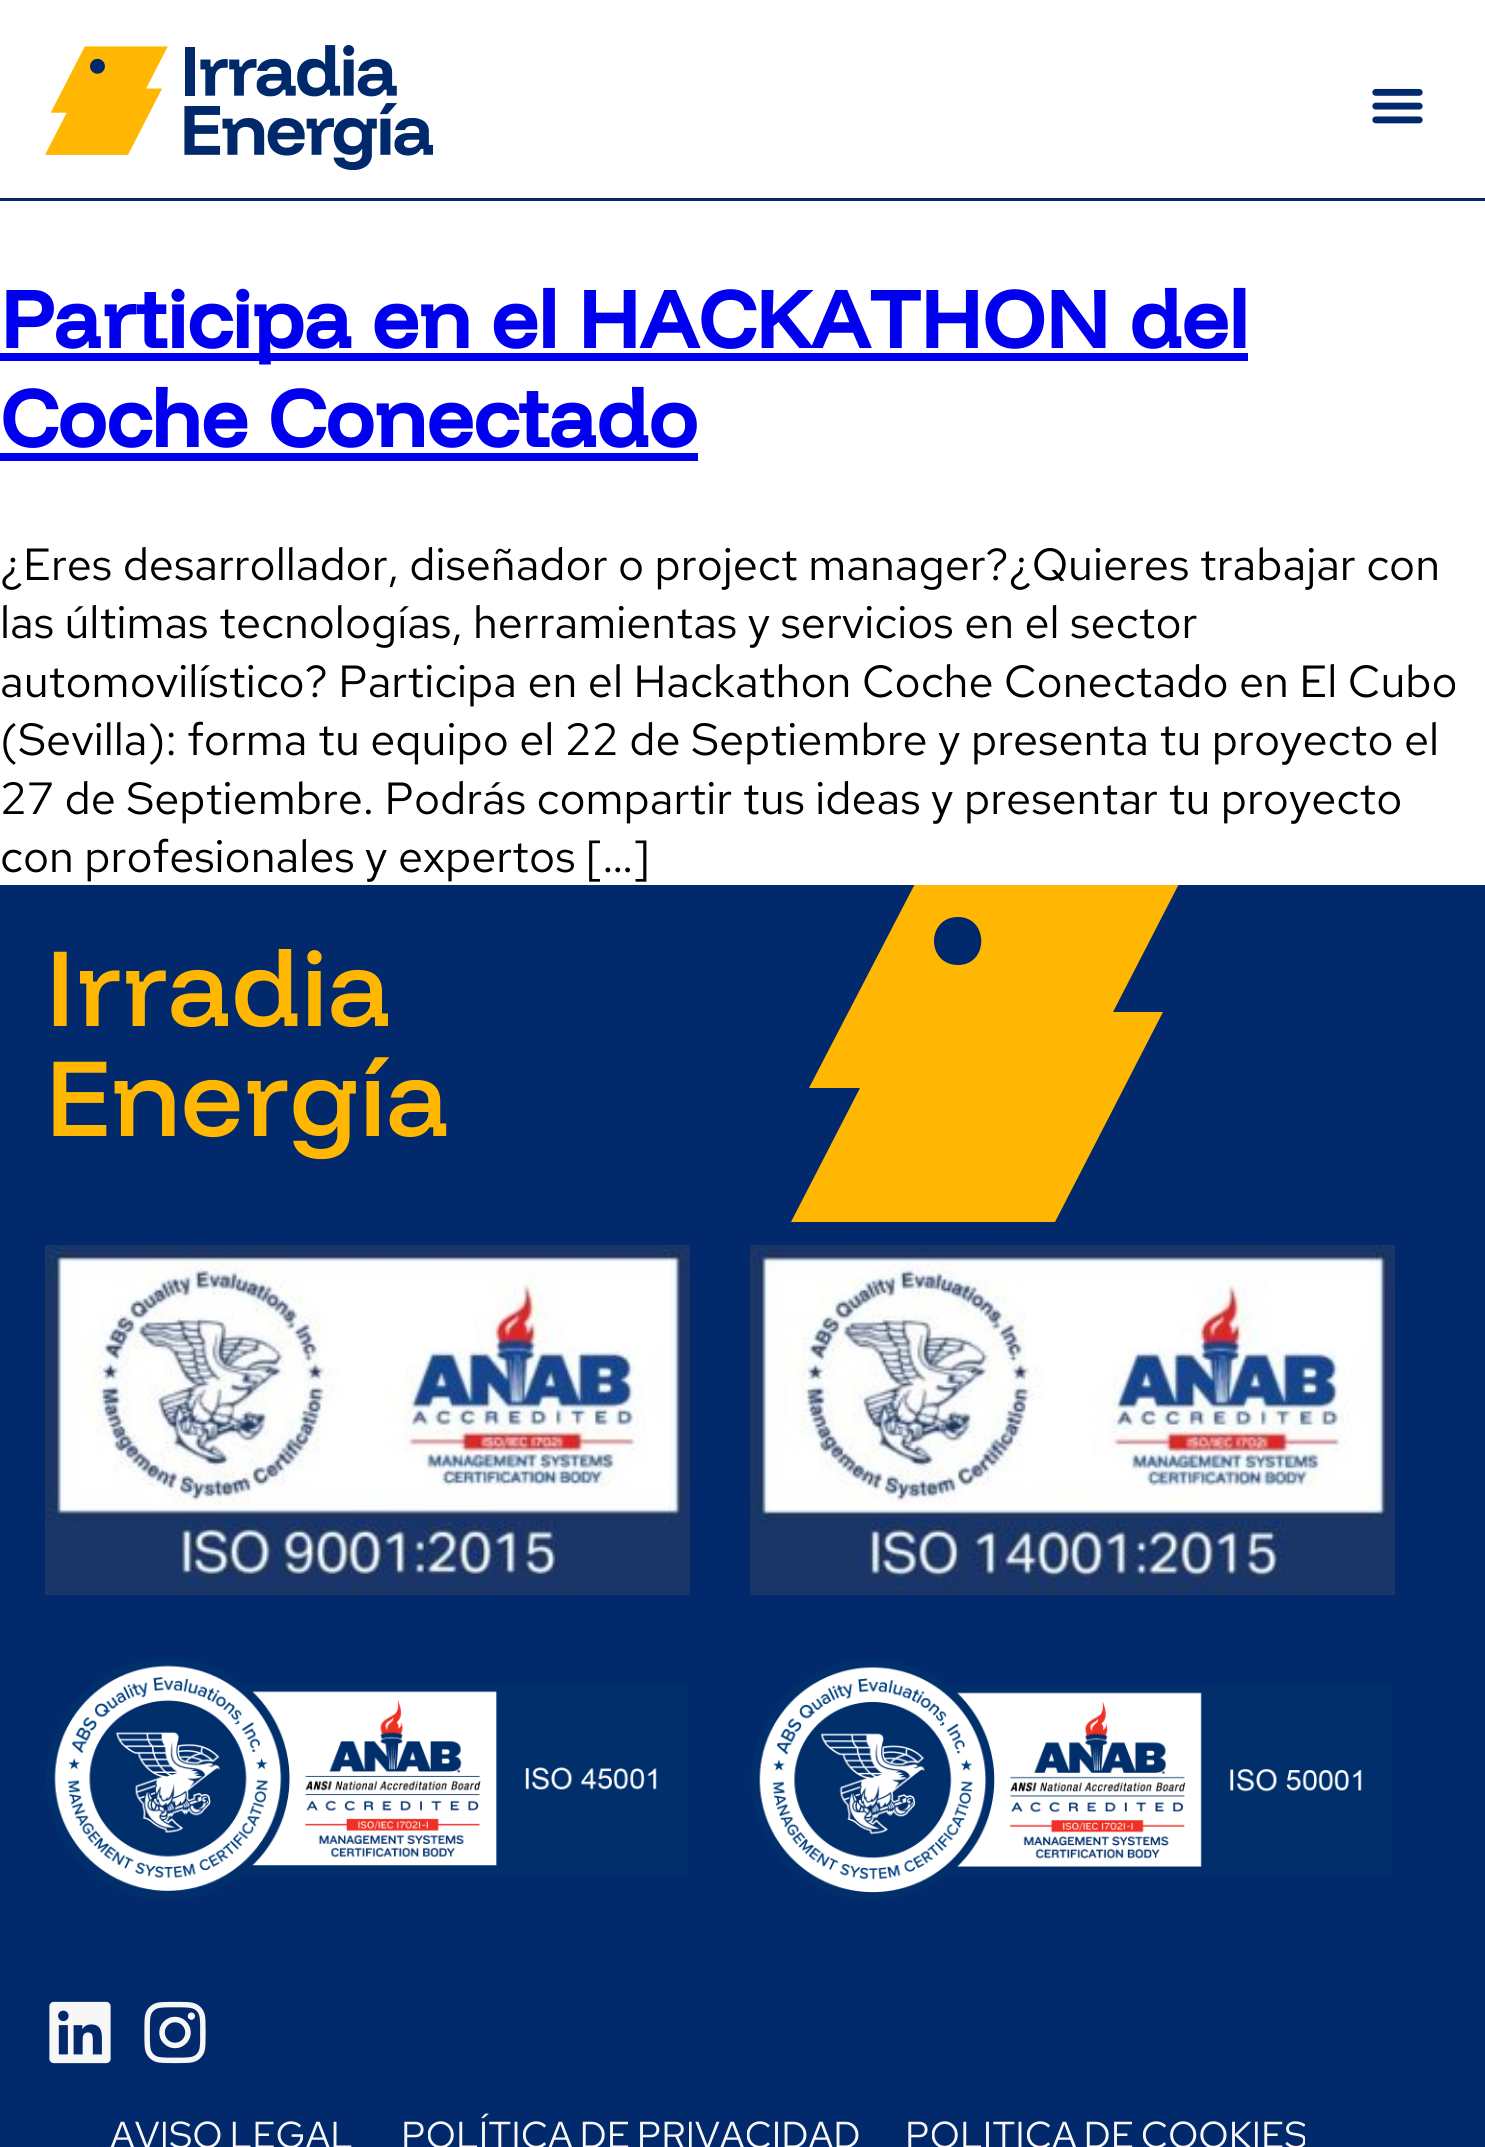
import math
import cairo

surface = cairo.ImageSurface(cairo.Format.RGB24, 1485, 2147)
ctx = cairo.Context(surface)
options = cairo.FontOptions()
options.set_hint_metrics(cairo.HintMetrics.OFF)
options.set_hint_style(cairo.HintStyle.NONE)
ctx.set_font_options(options)
ctx.set_miter_limit(4)


def ink(r, g, b):
    ctx.set_source_rgb(r / 255, g / 255, b / 255)


def write(x, y, s, family, size, color, bold=False, italic=False):
    ctx.select_font_face(family, cairo.FontSlant.ITALIC if italic else cairo.FontSlant.NORMAL, cairo.FontWeight.BOLD if bold else cairo.FontWeight.NORMAL)
    ctx.set_font_size(size)
    ink(*color)
    ctx.move_to(x, y)
    ctx.show_text(s)


def write_spaced(x, y, s, letter, word):
    ctx.move_to(x, y)
    for ch in s:
        ctx.show_text(ch)
        ctx.rel_move_to(letter + word * (ch == ' '), 0)


def block(x, y, w, h, *color):
    ink(*color)
    ctx.rectangle(x, y, w, h)
    ctx.fill()


def paste(path, x, y, w, h):
    ctx.save()
    ctx.set_source_surface(cairo.ImageSurface.create_from_png(path), x, y)
    ctx.rectangle(x, y, w, h)
    ctx.fill()
    ctx.restore()


s1 = dict(family="Funnel Display", size=82.5, color=(0, 0, 238), bold=True)
s2 = dict(family="Red Hat Text", size=45, color=(0, 0, 0))
s3 = dict(family="Funnel Display Medium", size=110, color=(255, 183, 1))

ink(255, 255, 255)
ctx.paint()
block(0, 198, 1485, 3, 1, 41, 107)
paste("pic1.png", 45, 45, 388, 125)
paste("pic2.png", 1372, 88, 51, 36)
block(0, 353, 1248, 8, 0, 0, 238)
write(0, 348, "Participa en el HACKATHON del", **s1)
write(0, 447, "Coche Conectado", **s1)
block(0, 453, 698, 8, 0, 0, 238)
write(0, 580, "¿Eres desarrollador, diseñador o project manager?¿Quieres trabajar con", **s2)
write(0, 638, "las últimas tecnologías, herramientas y servicios en el sector", **s2)
write(0, 697, "automovilístico? Participa en el Hackathon Coche Conectado en El Cubo", **s2)
write(0, 755, "(Sevilla): forma tu equipo el 22 de Septiembre y presenta tu proyecto el", **s2)
write(0, 814, "27 de Septiembre. Podrás compartir tus ideas y presentar tu proyecto", **s2)
write(0, 872, "con profesionales y expertos […]", **s2)
block(0, 885, 1485, 1262, 1, 41, 107)
write(45, 1026, "Irradia", **s3)
write(45, 1136, "Energía", **s3)
paste("pic3.png", 45, 1245, 645, 350)
paste("pic4.png", 750, 1245, 645, 350)
paste("pic5.png", 46, 1658, 642, 242)
paste("pic6.png", 751, 1659, 641, 241)
paste("pic7.png", 49, 2001, 62, 63)
paste("pic8.png", 144, 2001, 62, 63)
ctx.save()
ctx.rectangle(488, 885, 997, 338)
ctx.clip()
ink(255, 183, 3)
ctx.new_path()
ctx.move_to(918, 878)
ctx.line_to(809, 1088)
ctx.line_to(860, 1088)
ctx.line_to(791, 1222)
ctx.line_to(1055, 1222)
ctx.line_to(1163, 1012)
ctx.line_to(1113, 1012)
ctx.line_to(1182, 878)
ctx.close_path()
ctx.fill()
ctx.restore()
ink(0, 41, 107)
ctx.new_path()
ctx.move_to(958, 965)
ctx.curve_to(926, 965, 926, 917, 958, 917)
ctx.curve_to(989, 917, 989, 965, 958, 965)
ctx.fill()
ctx.select_font_face("Red Hat Text")
ctx.set_font_size(37.5)
ink(247, 247, 247)
write_spaced(110, 2148, "AVISO LEGAL", 0, -2)
write_spaced(401, 2148, "POLÍTICA DE PRIVACIDAD", 0, -2)
ctx.save()
ctx.rectangle(45, 2113, 1260, 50)
ctx.clip()
write_spaced(905, 2148, "POLITICA DE COOKIES", 0, -2)
ctx.restore()
surface.write_to_png("screenshot.png")
